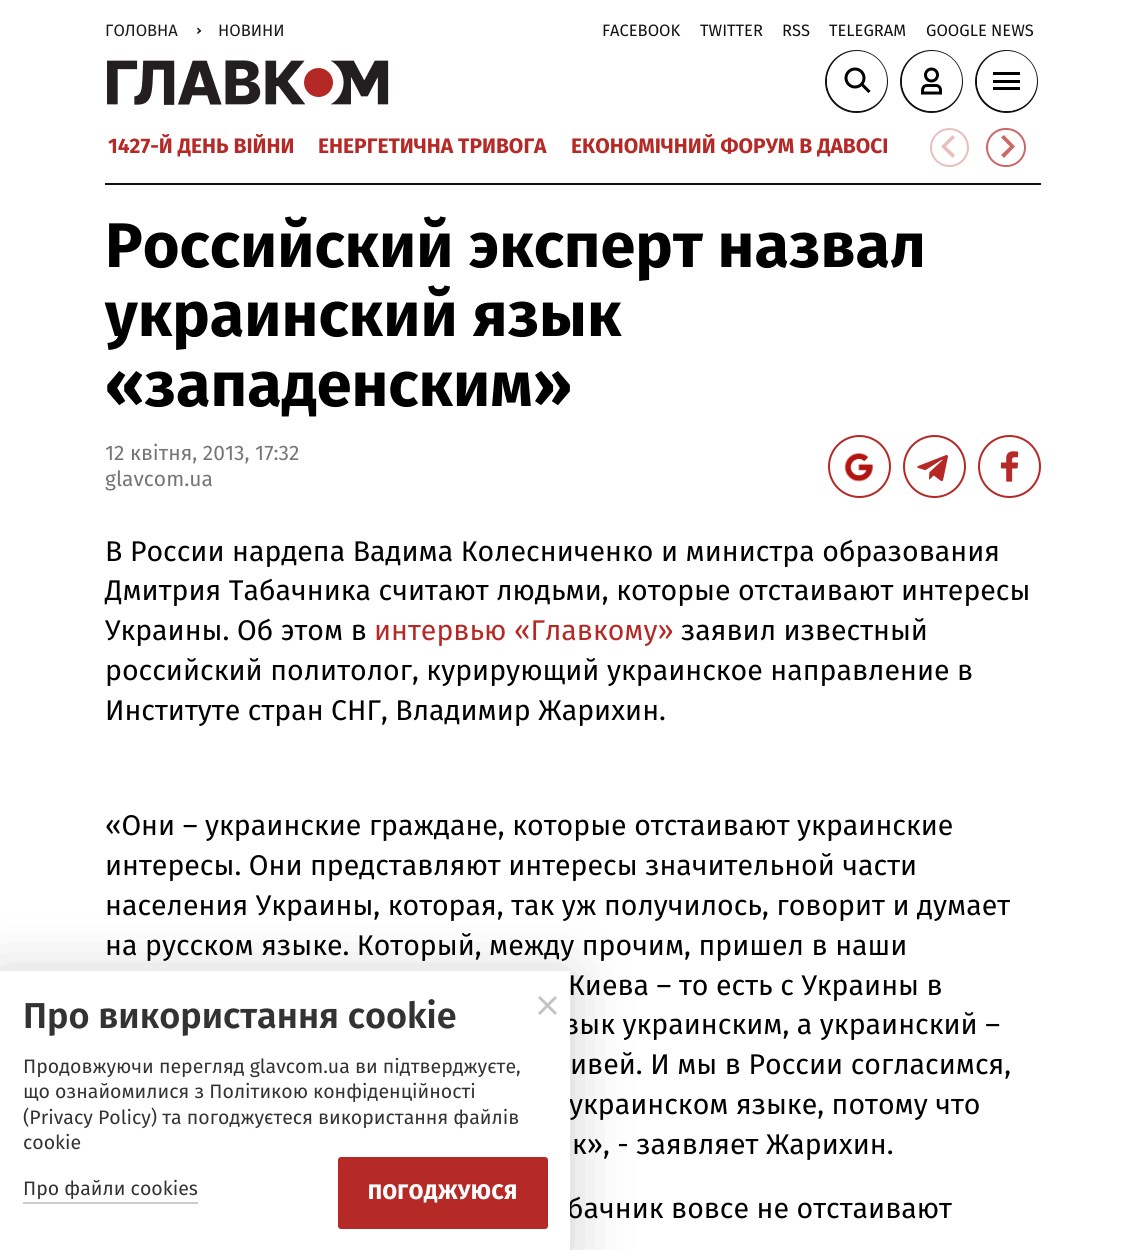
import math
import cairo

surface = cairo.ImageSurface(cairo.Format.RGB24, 1145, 1250)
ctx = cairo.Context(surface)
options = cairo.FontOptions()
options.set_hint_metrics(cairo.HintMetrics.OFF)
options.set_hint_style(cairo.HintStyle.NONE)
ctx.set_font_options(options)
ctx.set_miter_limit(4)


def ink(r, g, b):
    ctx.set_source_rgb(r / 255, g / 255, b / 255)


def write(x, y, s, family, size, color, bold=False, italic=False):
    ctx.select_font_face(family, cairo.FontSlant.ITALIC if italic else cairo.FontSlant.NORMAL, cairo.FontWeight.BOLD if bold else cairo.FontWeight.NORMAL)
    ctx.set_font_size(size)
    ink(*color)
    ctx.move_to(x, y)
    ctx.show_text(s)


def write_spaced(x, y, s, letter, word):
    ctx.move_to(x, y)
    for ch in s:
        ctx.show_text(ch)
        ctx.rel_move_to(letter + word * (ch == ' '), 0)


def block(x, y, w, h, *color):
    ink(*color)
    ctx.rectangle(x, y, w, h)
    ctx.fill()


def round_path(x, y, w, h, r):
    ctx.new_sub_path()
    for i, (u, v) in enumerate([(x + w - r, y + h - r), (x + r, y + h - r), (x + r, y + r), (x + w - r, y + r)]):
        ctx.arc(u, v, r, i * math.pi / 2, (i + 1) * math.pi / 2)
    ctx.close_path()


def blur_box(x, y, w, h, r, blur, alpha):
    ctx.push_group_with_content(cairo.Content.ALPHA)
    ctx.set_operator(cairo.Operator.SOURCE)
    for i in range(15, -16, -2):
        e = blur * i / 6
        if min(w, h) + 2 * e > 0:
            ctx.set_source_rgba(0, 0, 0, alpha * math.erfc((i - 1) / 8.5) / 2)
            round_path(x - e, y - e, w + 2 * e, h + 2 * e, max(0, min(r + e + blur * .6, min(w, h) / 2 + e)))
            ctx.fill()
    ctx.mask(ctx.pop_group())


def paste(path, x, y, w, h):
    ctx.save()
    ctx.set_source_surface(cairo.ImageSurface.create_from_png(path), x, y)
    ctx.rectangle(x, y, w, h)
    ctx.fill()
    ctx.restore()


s1 = dict(family="Fira Sans", size=16.5, color=(26, 26, 26))
s2 = dict(family="Fira Sans", size=16.5, color=(17, 17, 17))
s3 = dict(family="Fira Sans", size=21, color=(181, 41, 38), bold=True)
s4 = dict(family="Fira Sans", size=63, color=(0, 0, 0), bold=True)
s5 = dict(family="Fira Sans", size=21, color=(117, 117, 117))
s6 = dict(family="Fira Sans", size=28.5, color=(0, 0, 0))
s7 = dict(family="Fira Sans", size=28.5, color=(181, 41, 38))
s8 = dict(family="Fira Sans SemiBold", size=36, color=(51, 51, 51))
s9 = dict(family="Fira Sans", size=19.5, color=(51, 51, 51))

ink(255, 255, 255)
ctx.paint()
write(105, 36, "ГОЛОВНА", **s1)
ink(17, 17, 17)
ctx.new_path()
ctx.move_to(197, 28.5)
ctx.line_to(198, 27.5)
ctx.line_to(201, 31)
ctx.line_to(200, 32)
ctx.close_path()
ctx.fill()
ctx.new_path()
ctx.move_to(197, 33)
ctx.line_to(200, 29.5)
ctx.line_to(201, 31)
ctx.line_to(198, 34)
ctx.close_path()
ctx.fill()
write(218, 36, "НОВИНИ", **s1)
write(602, 36, "FACEBOOK", **s2)
write(700, 36, "TWITTER", **s2)
write(782, 36, "RSS", **s2)
write(829, 36, "TELEGRAM", **s2)
write(926, 36, "GOOGLE NEWS", **s2)
paste("pic1.png", 107, 60, 282, 45)
ctx.arc(856.5, 81.5, 30.5, 0, 2 * math.pi)
ctx.stroke()
ink(255, 255, 255)
ctx.arc(857, 81, 30, 0, 2 * math.pi)
ctx.fill()
ctx.new_path()
ctx.move_to(856, 78.5)
ctx.line_to(869.5, 92)
ink(0, 0, 0)
ctx.set_line_width(3)
ctx.stroke()
ink(255, 255, 255)
ctx.arc(855, 78, 9, 0, 2 * math.pi)
ctx.fill_preserve()
ink(0, 0, 0)
ctx.stroke()
ctx.arc(931.5, 81.5, 30.5, 0, 2 * math.pi)
ink(17, 17, 17)
ctx.set_line_width(2)
ctx.stroke()
ink(255, 255, 255)
ctx.arc(932, 81, 30, 0, 2 * math.pi)
ctx.fill()
ctx.arc(931.5, 75, 6, 0, 2 * math.pi)
ink(0, 0, 0)
ctx.set_line_width(3)
ctx.stroke()
ctx.new_path()
ctx.move_to(927, 85.5)
ctx.line_to(936, 85.5)
ctx.curve_to(938.5, 85.5, 940.5, 87.5, 940.5, 90)
ctx.line_to(940.5, 93)
ctx.line_to(922.5, 93)
ctx.curve_to(922.5, 89.5, 922.5, 85.5, 927, 85.5)
ctx.close_path()
ctx.stroke()
ctx.arc(1006.5, 81.5, 30.5, 0, 2 * math.pi)
ink(17, 17, 17)
ctx.set_line_width(2)
ctx.stroke()
paste("pic2.png", 977, 51, 60, 60)
ctx.save()
ctx.rectangle(108, 134, 186, 25)
ctx.clip()
write(108, 153, "1427-Й ДЕНЬ ВІЙНИ", **s3)
ctx.restore()
write(318, 153, "ЕНЕРГЕТИЧНА ТРИВОГА", **s3)
ctx.save()
ctx.rectangle(572, 134, 316, 25)
ctx.clip()
write(571, 153, "ЕКОНОМІЧНИЙ ФОРУМ В ДАВОСІ", **s3)
ctx.restore()
ctx.new_path()
ctx.arc(949.5, 147.5, 18.5, 0, 2 * math.pi)
ink(233, 191, 190)
ctx.stroke()
ctx.new_path()
ctx.move_to(952.5, 135)
ctx.line_to(955, 137.5)
ctx.line_to(946, 146.5)
ctx.line_to(955, 155)
ctx.line_to(952.5, 158)
ctx.line_to(941, 146.5)
ctx.close_path()
ctx.fill()
round_path(987, 129, 38, 37, 18.5)
ink(203, 105, 103)
ctx.stroke()
ctx.new_path()
ctx.move_to(1004, 135)
ctx.line_to(1001, 137.5)
ctx.line_to(1010, 146.5)
ctx.line_to(1001, 155)
ctx.line_to(1004, 158)
ctx.line_to(1015, 146.5)
ctx.close_path()
ctx.fill()
block(105, 183, 936, 2, 17, 17, 17)
write(105, 267, "Российский эксперт назвал", **s4)
write(105, 336, "украинский язык", **s4)
write(105, 406, "«западенским»", **s4)
write(105, 460, "12 квiтня, 2013, 17:32", **s5)
write(105, 486, "glavcom.ua", **s5)
ctx.new_path()
ctx.arc(859.5, 466.5, 30.5, 0, 2 * math.pi)
ink(181, 41, 38)
ctx.stroke()
paste("pic3.png", 844, 452, 29, 30)
ctx.arc(934.5, 466.5, 30.5, 0, 2 * math.pi)
ctx.stroke()
paste("pic4.png", 917, 455, 31, 27)
ctx.arc(1009.5, 466.5, 30.5, 0, 2 * math.pi)
ctx.stroke()
paste("pic5.png", 1000, 451, 19, 31)
write(105, 561, "В России нардепа Вадима Колесниченко и министра образования", **s6)
write(105, 600, "Дмитрия Табачника считают людьми, которые отстаивают интересы", **s6)
write(105, 640, "Украины. Об этом в", **s6)
write(374, 640, "интервью «Главкому»", **s7)
write(681, 640, "заявил известный", **s6)
write(105, 680, "российский политолог, курирующий украинское направление в", **s6)
write(105, 720, "Институте стран СНГ, Владимир Жарихин.", **s6)
write(105, 835, "«Они – украинские граждане, которые отстаивают украинские", **s6)
write(105, 875, "интересы. Они представляют интересы значительной части", **s6)
write(105, 915, "населения Украины, которая, так уж получилось, говорит и думает", **s6)
write(105, 955, "на русском языке. Который, между прочим, пришел в наши", **s6)
write(568, 995, "Киева – то есть с Украины в", **s6)
write(565, 1034, "зык украинским, а украинский –", **s6)
write(570, 1074, "ивей. И мы в России согласимся,", **s6)
write(569, 1114, "украинском языке, потому что", **s6)
write(572, 1154, "к», - заявляет Жарихин.", **s6)
write(567, 1218, "бачник вовсе не отстаивают", **s6)
ink(0, 0, 0)
blur_box(0, 977, 570, 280, 0, 30, 0.2)
block(0, 971, 570, 279, 255, 255, 255)
write(23, 1028, "Про використання cookie", **s8)
ink(194, 194, 194)
ctx.new_path()
ctx.move_to(555, 996)
ctx.line_to(557, 998)
ctx.line_to(540, 1015)
ctx.line_to(538, 1013)
ctx.close_path()
ctx.fill()
ctx.new_path()
ctx.move_to(538, 998)
ctx.line_to(540, 996)
ctx.line_to(557, 1013)
ctx.line_to(555, 1015)
ctx.close_path()
ctx.fill()
write(23, 1073, "Продовжуючи перегляд glavcom.ua ви підтверджуєте,", **s9)
write(23, 1098, "що ознайомилися з Політикою конфіденційності", **s9)
write(23, 1124, "(Privacy Policy) та погоджуєтеся використання файлів", **s9)
write(23, 1149, "cookie", **s9)
write(23, 1195, "Про файли cookies", **s9)
block(23, 1202, 175, 2, 204, 204, 204)
ink(181, 41, 38)
round_path(338, 1157, 210, 72, 3)
ctx.fill()
ctx.select_font_face("Fira Sans ExtraBold")
ctx.set_font_size(21)
ink(255, 255, 255)
write_spaced(368, 1199, "ПОГОДЖУЮСЯ", 0.6, 0)
surface.write_to_png("screenshot.png")
